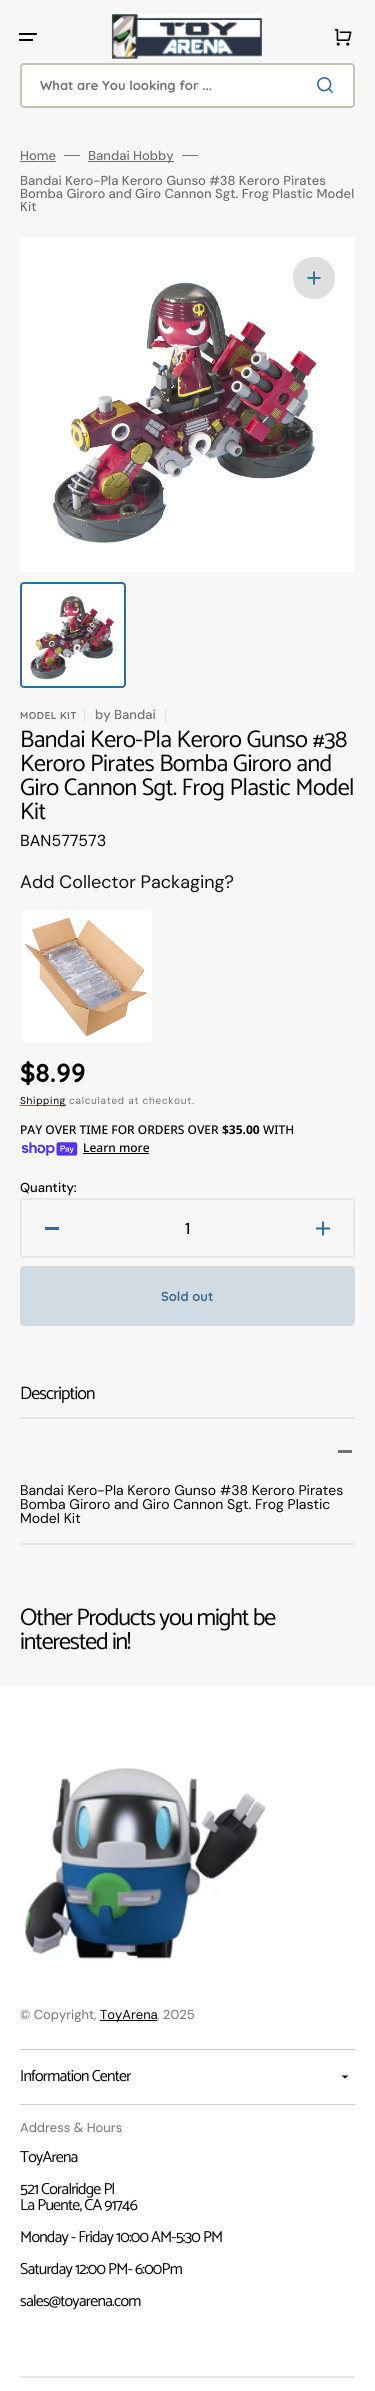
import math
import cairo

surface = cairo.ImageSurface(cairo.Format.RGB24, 375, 2391)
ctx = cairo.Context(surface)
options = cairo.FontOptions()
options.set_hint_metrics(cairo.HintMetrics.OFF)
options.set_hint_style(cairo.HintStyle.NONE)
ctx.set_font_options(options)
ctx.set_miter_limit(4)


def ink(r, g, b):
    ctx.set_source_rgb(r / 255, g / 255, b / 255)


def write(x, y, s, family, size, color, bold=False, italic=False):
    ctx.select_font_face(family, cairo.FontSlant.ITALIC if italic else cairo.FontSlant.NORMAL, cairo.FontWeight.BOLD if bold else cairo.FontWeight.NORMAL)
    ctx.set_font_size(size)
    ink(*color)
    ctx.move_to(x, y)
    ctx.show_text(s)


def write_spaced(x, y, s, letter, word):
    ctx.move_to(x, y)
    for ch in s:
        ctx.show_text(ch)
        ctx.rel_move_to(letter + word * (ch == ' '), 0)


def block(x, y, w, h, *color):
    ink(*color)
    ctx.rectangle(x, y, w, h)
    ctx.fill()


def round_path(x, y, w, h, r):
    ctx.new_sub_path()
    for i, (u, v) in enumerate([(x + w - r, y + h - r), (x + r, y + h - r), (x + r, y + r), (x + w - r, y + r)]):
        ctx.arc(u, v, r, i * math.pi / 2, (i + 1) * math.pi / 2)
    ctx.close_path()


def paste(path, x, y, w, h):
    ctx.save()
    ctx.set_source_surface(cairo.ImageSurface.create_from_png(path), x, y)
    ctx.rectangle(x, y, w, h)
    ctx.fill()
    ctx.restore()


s1 = dict(family="Quicksand", size=13, color=(113, 113, 113), bold=True)
s2 = dict(family="DM Sans Medium", size=13, color=(113, 113, 113))
s3 = dict(family="DM Sans", size=16, color=(4, 4, 4))
s4 = dict(family="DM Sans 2", size=18, color=(18, 18, 18))
s5 = dict(family="Quicksand", size=26, color=(4, 4, 4), bold=True)
s6 = dict(family="Noto Sans Medium", size=12, color=(4, 4, 4))
s7 = dict(family="Noto Sans", size=12, color=(4, 4, 4), bold=True)
s8 = dict(family="DM Sans Medium", size=13, color=(4, 4, 4))
s9 = dict(family="DM Sans 2 Medium", size=16, color=(4, 4, 4))
s10 = dict(family="Quicksand", size=13, color=(56, 108, 146), bold=True)
s11 = dict(family="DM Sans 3", size=14, color=(4, 4, 4))
s12 = dict(family="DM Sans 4", size=13, color=(113, 113, 113))
s13 = dict(family="DM Sans 4", size=13, color=(4, 4, 4))

ink(247, 247, 247)
ctx.paint()
block(19, 33, 18, 2, 4, 4, 4)
block(19, 39, 14, 2, 4, 4, 4)
paste("pic1.png", 111, 14, 151, 45)
paste("pic2.png", 335, 29, 17, 17)
ink(255, 255, 255)
round_path(21, 64, 333, 43, 3)
ctx.fill_preserve()
ink(199, 194, 177)
ctx.stroke()
write(40, 90, "What are You looking for ...", **s1)
paste("pic3.png", 317, 77, 17, 17)
write(20, 160, "Home", **s2)
block(20, 161, 36, 1, 113, 113, 113)
block(64, 155, 16, 1, 113, 113, 113)
block(88, 161, 86, 1, 113, 113, 113)
write(88, 160, "Bandai Hobby", **s2)
block(182, 155, 16, 1, 113, 113, 113)
write(20, 185, "Bandai Kero-Pla Keroro Gunso #38 Keroro Pirates", **s2)
write(20, 198, "Bomba Giroro and Giro Cannon Sgt. Frog Plastic Model", **s2)
write(20, 211, "Kit", **s2)
ink(255, 255, 255)
round_path(20, 237, 335, 335, 4)
ctx.fill()
paste("pic4.png", 52, 282, 267, 262)
ink(247, 247, 247)
ctx.arc(314, 278, 21, 0, 2 * math.pi)
ctx.fill()
ctx.set_source_rgba(0.016, 0.016, 0.016, 0.1)
ctx.new_path()
ctx.move_to(314, 257)
ctx.curve_to(342, 257, 342, 299, 314, 299)
ctx.curve_to(286, 299, 286, 257, 314, 257)
ctx.close_path()
ctx.fill()
paste("pic5.png", 307, 271, 14, 14)
block(20, 582, 106, 106, 255, 255, 255)
paste("pic6.png", 30, 596, 85, 84)
round_path(21, 583, 104, 104, 3)
ink(50, 108, 150)
ctx.stroke()
ctx.select_font_face("Quicksand", cairo.FontSlant.NORMAL, cairo.FontWeight.BOLD)
ctx.set_font_size(10)
ink(113, 113, 113)
write_spaced(20, 719, "MODEL KIT", 0.5, 0)
block(84, 708, 1, 14, 224, 227, 238)
write(95, 719, "by Bandai", **s2)
block(165, 709, 1, 14, 224, 227, 238)
ctx.select_font_face("Catamaran")
ctx.set_font_size(24)
ink(4, 4, 4)
write_spaced(20, 747, "Bandai Kero-Pla Keroro Gunso #38", -0.5, 0)
write_spaced(20, 771, "Keroro Pirates Bomba Giroro and", -0.5, 0)
write_spaced(20, 795, "Giro Cannon Sgt. Frog Plastic Model", -0.5, 0)
write_spaced(20, 819, "Kit", -0.5, 0)
write(20, 846, "BAN577573", **s3)
write(20, 888, "Add Collector Packaging?", **s4)
paste("pic7.png", 22, 911, 130, 132)
write(20, 1082, "$8.99", **s5)
block(20, 1105, 46, 1, 50, 108, 150)
ctx.select_font_face("DM Sans")
ctx.set_font_size(10)
ink(4, 4, 4)
write_spaced(20, 1104, "Shipping", 0.7, 0)
ink(113, 113, 113)
write_spaced(69, 1104, "calculated at checkout.", 0.7, 0)
write(20, 1134, "PAY OVER TIME FOR ORDERS OVER", **s6)
write(222, 1134, "$35.00", **s7)
write(263, 1134, "WITH", **s6)
paste("pic8.png", 21, 1142, 57, 14)
write(83, 1152, "Learn more", **s6)
block(83, 1153, 66, 1, 4, 4, 4)
write(20, 1192, "Quantity:", **s8)
round_path(21, 1199, 333, 58, 3)
ink(231, 231, 231)
ctx.stroke()
block(45, 1227, 14, 3, 50, 108, 150)
write(185, 1234, "1", **s9)
paste("pic9.png", 316, 1221, 14, 15)
ink(208, 219, 228)
round_path(20, 1266, 335, 60, 4)
ctx.fill()
write(161, 1301, "Sold out", **s10)
ctx.select_font_face("Catamaran")
ctx.set_font_size(18)
ink(4, 4, 4)
write_spaced(20, 1399, "Description", -0.9, 0)
block(20, 1417, 335, 2, 231, 231, 231)
block(20, 1543, 335, 2, 231, 231, 231)
block(338, 1450, 14, 3, 113, 113, 113)
write(20, 1495, "Bandai Kero-Pla Keroro Gunso #38 Keroro Pirates", **s11)
write(20, 1509, "Bomba Giroro and Giro Cannon Sgt. Frog Plastic", **s11)
write(20, 1523, "Model Kit", **s11)
ctx.select_font_face("Catamaran")
ctx.set_font_size(24)
write_spaced(20, 1625, "Other Products you might be", -1.2, 0)
write_spaced(20, 1649, "interested in!", -1.2, 0)
block(0, 1687, 375, 704, 255, 255, 255)
paste("pic10.png", 24, 1768, 243, 193)
write(20, 2019, "© Copyright,", **s12)
block(100, 2020, 57, 1, 4, 4, 4)
write(100, 2019, "ToyArena", **s13)
write(157, 2019, ", 2025", **s12)
block(20, 2049, 335, 1, 205, 205, 205)
block(20, 2104, 335, 1, 205, 205, 205)
ctx.select_font_face("Catamaran")
ctx.set_font_size(16)
ink(4, 4, 4)
write_spaced(20, 2081, "Information Center", -0.8, 0)
ctx.new_path()
ctx.move_to(345, 2078.5)
ctx.line_to(341.5, 2075.5)
ctx.line_to(348.5, 2075.5)
ctx.close_path()
ctx.fill()
write(20, 2132, "Address & Hours", **s12)
ctx.select_font_face("Catamaran")
ctx.set_font_size(16)
ink(4, 4, 4)
write_spaced(20, 2162, "ToyArena", -0.8, 0)
write_spaced(20, 2194, "521 Coralridge Pl", -0.8, 0)
write_spaced(20, 2210, "La Puente, CA 91746", -0.8, 0)
write_spaced(20, 2242, "Monday - Friday 10:00 AM-5:30 PM", -0.8, 0)
write_spaced(20, 2274, "Saturday 12:00 PM- 6:00Pm", -0.8, 0)
write_spaced(20, 2306, "sales@toyarena.com", -0.8, 0)
block(20, 2376, 335, 2, 231, 231, 231)
surface.write_to_png("screenshot.png")
